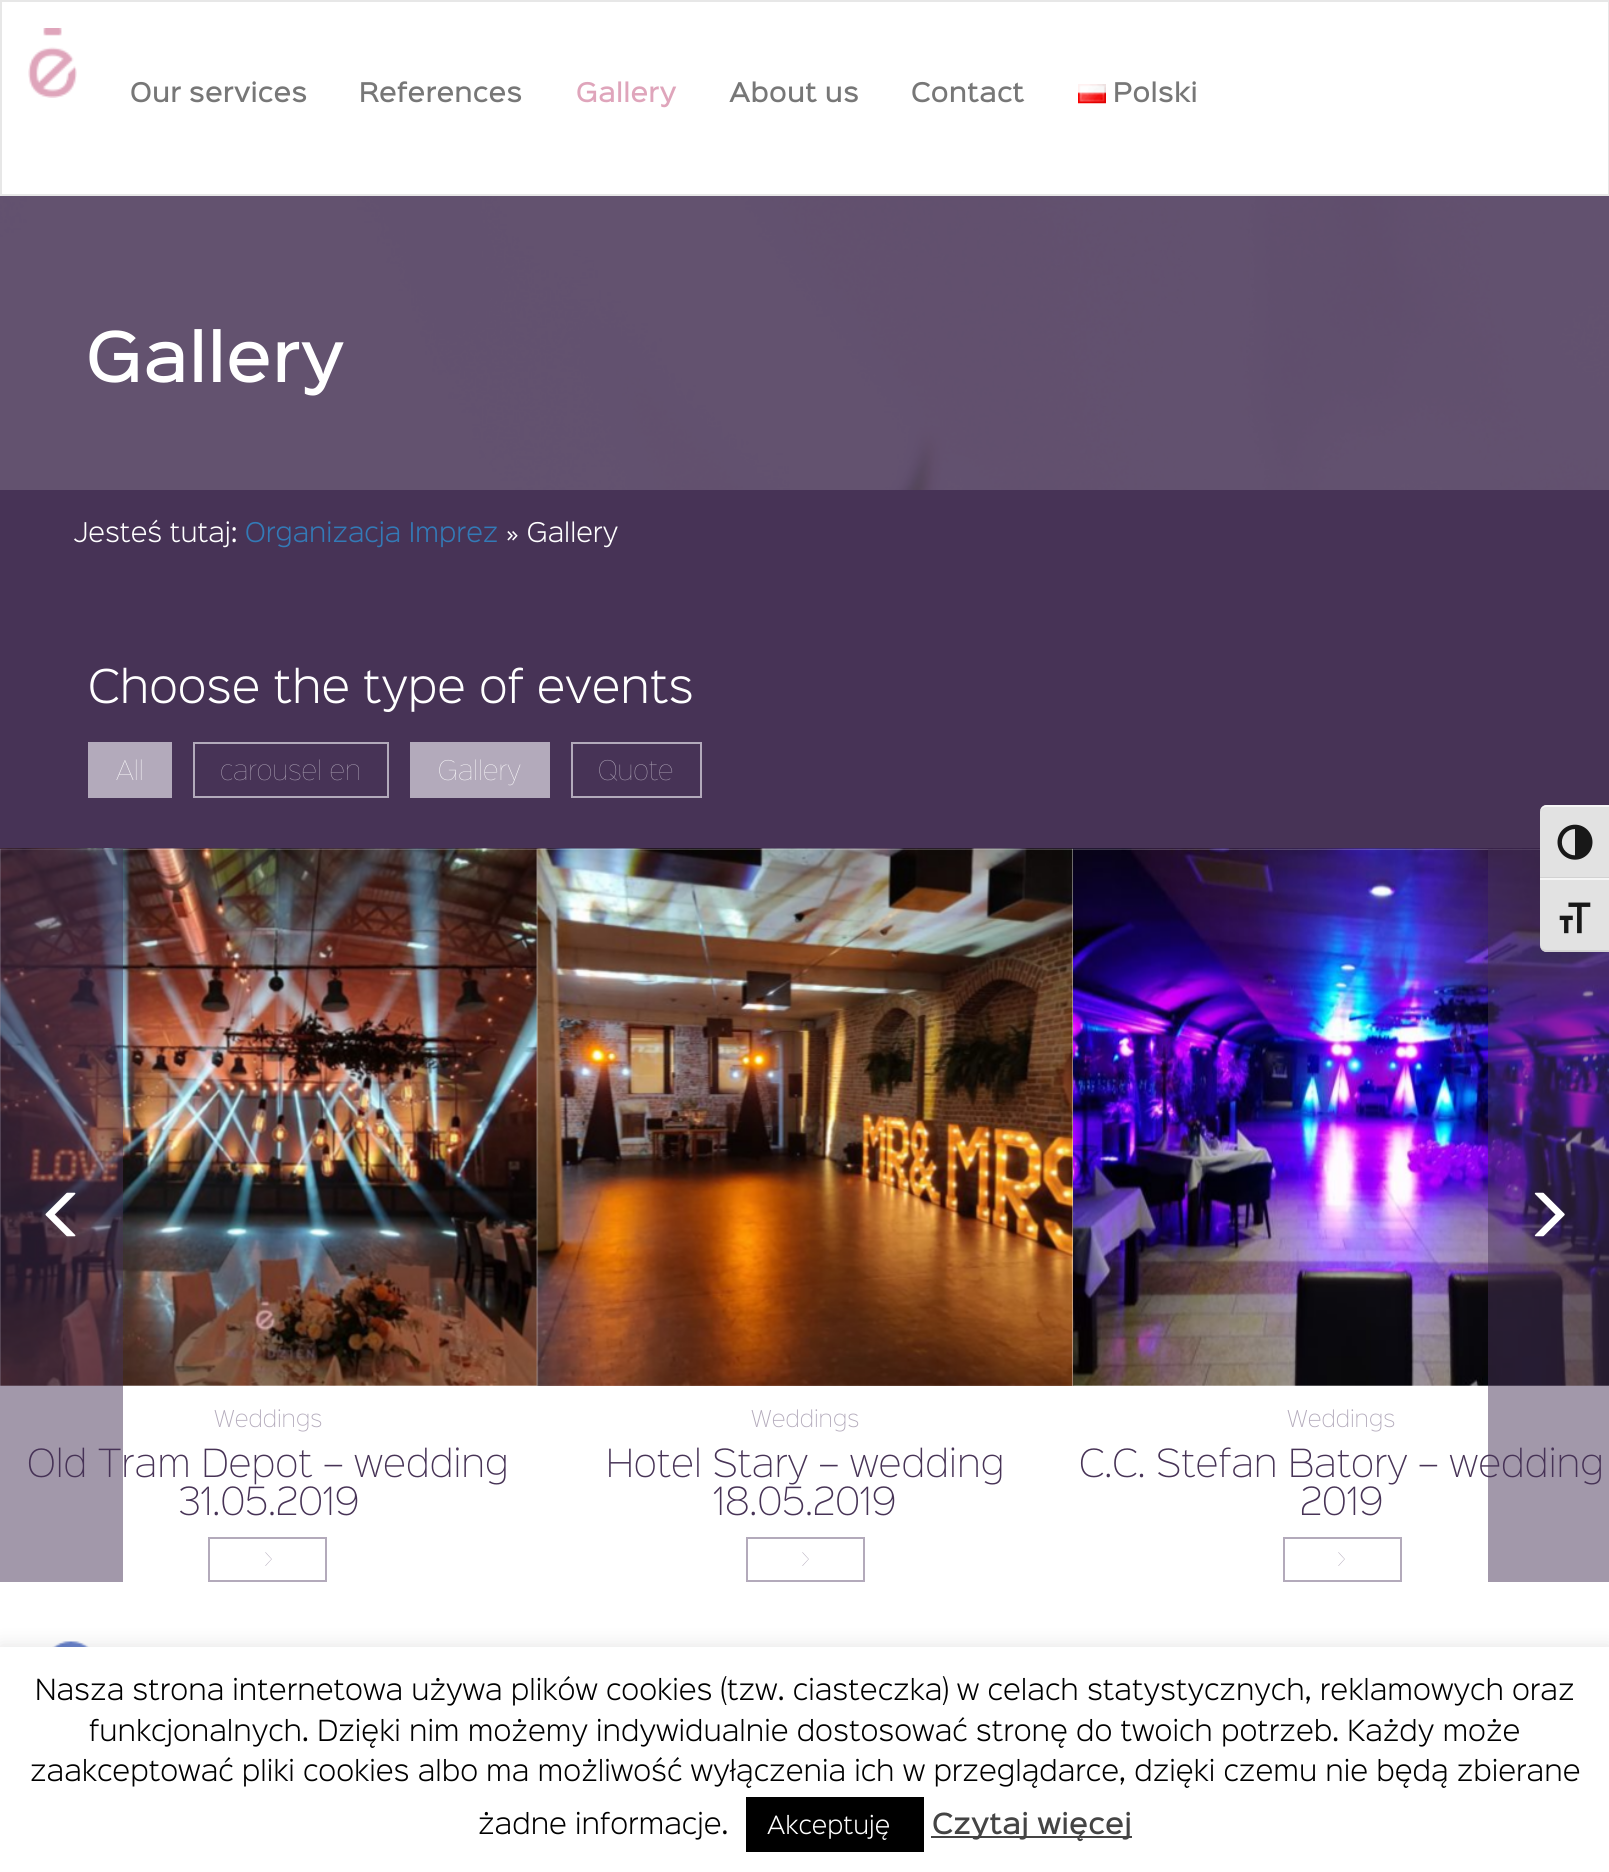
import math
import cairo

surface = cairo.ImageSurface(cairo.Format.RGB24, 1609, 1872)
ctx = cairo.Context(surface)
options = cairo.FontOptions()
options.set_hint_metrics(cairo.HintMetrics.OFF)
options.set_hint_style(cairo.HintStyle.NONE)
ctx.set_font_options(options)
ctx.set_miter_limit(4)


def ink(r, g, b):
    ctx.set_source_rgb(r / 255, g / 255, b / 255)


def write(x, y, s, family, size, color, bold=False, italic=False):
    ctx.select_font_face(family, cairo.FontSlant.ITALIC if italic else cairo.FontSlant.NORMAL, cairo.FontWeight.BOLD if bold else cairo.FontWeight.NORMAL)
    ctx.set_font_size(size)
    ink(*color)
    ctx.move_to(x, y)
    ctx.show_text(s)


def block(x, y, w, h, *color):
    ink(*color)
    ctx.rectangle(x, y, w, h)
    ctx.fill()


def round_path(x, y, w, h, r):
    ctx.new_sub_path()
    for i, (u, v) in enumerate([(x + w - r, y + h - r), (x + r, y + h - r), (x + r, y + r), (x + w - r, y + r)]):
        ctx.arc(u, v, r, i * math.pi / 2, (i + 1) * math.pi / 2)
    ctx.close_path()


def blur_box(x, y, w, h, r, blur, alpha):
    ctx.push_group_with_content(cairo.Content.ALPHA)
    ctx.set_operator(cairo.Operator.SOURCE)
    for i in range(15, -16, -2):
        e = blur * i / 6
        if min(w, h) + 2 * e > 0:
            ctx.set_source_rgba(0, 0, 0, alpha * math.erfc((i - 1) / 8.5) / 2)
            round_path(x - e, y - e, w + 2 * e, h + 2 * e, max(0, min(r + e + blur * .6, min(w, h) / 2 + e)))
            ctx.fill()
    ctx.mask(ctx.pop_group())


def paste(path, x, y, w, h):
    ctx.save()
    ctx.set_source_surface(cairo.ImageSurface.create_from_png(path), x, y)
    ctx.rectangle(x, y, w, h)
    ctx.fill()
    ctx.restore()


s1 = dict(family="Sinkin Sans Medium", size=24.5, color=(119, 119, 119))
s2 = dict(family="Sinkin Sans Medium", size=24.5, color=(223, 165, 187))
s3 = dict(family="Sinkin Sans Medium", size=63, color=(255, 255, 255))
s4 = dict(family="Sinkin Sans Light", size=24.5, color=(255, 255, 255))
s5 = dict(family="Sinkin Sans Light", size=24.5, color=(51, 122, 183))
s6 = dict(family="Sinkin Sans Light", size=42, color=(255, 255, 255))
s7 = dict(family="Sinkin Sans Thin", size=24.5, color=(255, 255, 255))
s8 = dict(family="Sinkin Sans Thin", size=24.5, color=(179, 170, 187))
s9 = dict(family="Sinkin Sans ExtraLight", size=35, color=(71, 51, 86))
s10 = dict(family="Sinkin Sans ExtraLight", size=21, color=(179, 170, 187))
s11 = dict(family="Sinkin Sans Light", size=26.25, color=(0, 0, 0))
s12 = dict(family="Sinkin Sans Light", size=22.75, color=(255, 255, 255))
s13 = dict(family="Sinkin Sans Medium", size=26.25, color=(68, 68, 68))

ink(255, 255, 255)
ctx.paint()
ctx.rectangle(1, 1, 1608, 194)
ink(231, 231, 231)
ctx.stroke()
paste("pic1.png", 28, 28, 49, 70)
write(130, 102, "Our services", **s1)
write(359, 102, "References", **s1)
write(576, 102, "Gallery", **s2)
write(729, 102, "About us", **s1)
write(911, 102, "Contact", **s1)
paste("pic2.png", 1078, 84, 28, 20)
write(1113, 102, "Polski", **s1)
paste("pic3.png", 0, 196, 1609, 294)
write(86, 382, "Gallery", **s3)
block(0, 490, 1609, 359, 71, 51, 86)
write(74, 542, "Jesteś tutaj:", **s4)
write(245, 542, "Organizacja Imprez", **s5)
write(506, 542, "» Gallery", **s4)
write(88, 703, "Choose the type of events", **s6)
block(88, 742, 84, 56, 179, 170, 187)
write(116, 780, "All", **s7)
ctx.rectangle(194, 743, 194, 54)
ink(179, 170, 187)
ctx.stroke()
write(220, 780, "carousel en", **s8)
block(410, 742, 140, 56, 179, 170, 187)
write(438, 780, "Gallery", **s7)
ctx.rectangle(572, 743, 129, 54)
ink(179, 170, 187)
ctx.stroke()
write(598, 780, "Quote", **s8)
paste("pic6.png", 0, 848, 538, 538)
write(27, 1477, "Old Tram Depot – wedding", **s9)
ctx.set_source_rgba(0.278, 0.2, 0.337, 0.5)
ctx.rectangle(0, 849, 123, 733)
ctx.fill()
paste("pic4.png", 45, 1192, 31, 45)
paste("pic7.png", 536, 848, 538, 538)
paste("pic8.png", 1073, 848, 536, 538)
write(1079, 1477, "C.C. Stefan Batory – wedding", **s9)
ctx.set_source_rgba(0.278, 0.2, 0.337, 0.5)
ctx.rectangle(1488, 849, 121, 733)
ctx.fill()
paste("pic5.png", 1534, 1192, 31, 45)
write(214, 1427, "Weddings", **s10)
write(178, 1515, "31.05.2019", **s9)
ctx.rectangle(209, 1538, 117, 43)
ink(179, 170, 187)
ctx.stroke()
write(263, 1569, ">", **s8)
write(751, 1427, "Weddings", **s10)
write(606, 1477, "Hotel Stary – wedding", **s9)
write(713, 1515, "18.05.2019", **s9)
ctx.rectangle(747, 1538, 117, 43)
ink(179, 170, 187)
ctx.stroke()
write(800, 1569, ">", **s8)
write(1287, 1427, "Weddings", **s10)
write(1300, 1515, "2019", **s9)
ctx.rectangle(1284, 1538, 117, 43)
ink(179, 170, 187)
ctx.stroke()
write(1336, 1569, ">", **s8)
paste("pic9.png", 52, 1641, 38, 6)
ink(226, 226, 226)
ctx.new_path()
ctx.move_to(1547, 805)
ctx.line_to(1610, 805)
ctx.line_to(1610, 879)
ctx.line_to(1540, 879)
ctx.line_to(1540, 812)
ctx.curve_to(1540, 808, 1543, 805, 1547, 805)
ctx.close_path()
ctx.fill()
ink(245, 245, 245)
ctx.new_path()
ctx.move_to(1547, 807)
ctx.line_to(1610, 807)
ctx.line_to(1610, 805)
ctx.line_to(1547, 805)
ctx.curve_to(1543, 805, 1540, 808, 1540, 812)
ctx.curve_to(1540, 809, 1543, 807, 1547, 807)
ctx.close_path()
ctx.fill()
block(1540, 877, 69, 1, 210, 210, 210)
paste("pic10.png", 1557, 824, 36, 36)
ink(226, 226, 226)
ctx.new_path()
ctx.move_to(1540, 879)
ctx.line_to(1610, 879)
ctx.line_to(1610, 952)
ctx.line_to(1547, 952)
ctx.curve_to(1543, 952, 1540, 949, 1540, 945)
ctx.close_path()
ctx.fill()
block(1540, 878, 69, 2, 245, 245, 245)
ink(210, 210, 210)
ctx.new_path()
ctx.move_to(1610, 952)
ctx.line_to(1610, 950)
ctx.line_to(1547, 950)
ctx.curve_to(1543, 950, 1540, 948, 1540, 945)
ctx.curve_to(1540, 949, 1543, 952, 1547, 952)
ctx.close_path()
ctx.fill()
paste("pic11.png", 1559, 902, 32, 32)
ink(172, 171, 171)
blur_box(0, 1645, 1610, 226, 0, 9, 0.3)
block(0, 1647, 1609, 225, 255, 255, 255)
write(35, 1700, "Nasza strona internetowa używa plików cookies (tzw. ciasteczka) w celach statystycznych, reklamowych oraz", **s11)
write(89, 1741, "funkcjonalnych. Dzięki nim możemy indywidualnie dostosować stronę do twoich potrzeb. Każdy może", **s11)
write(30, 1781, "zaakceptować pliki cookies albo ma możliwość wyłączenia ich w przeglądarce, dzięki czemu nie będą zbierane", **s11)
write(478, 1834, "żadne informacje.", **s11)
block(746, 1797, 178, 55, 0, 0, 0)
write(767, 1834, "Akceptuję", **s12)
block(931, 1836, 201, 2, 68, 68, 68)
write(932, 1834, "Czytaj więcej", **s13)
surface.write_to_png("screenshot.png")
